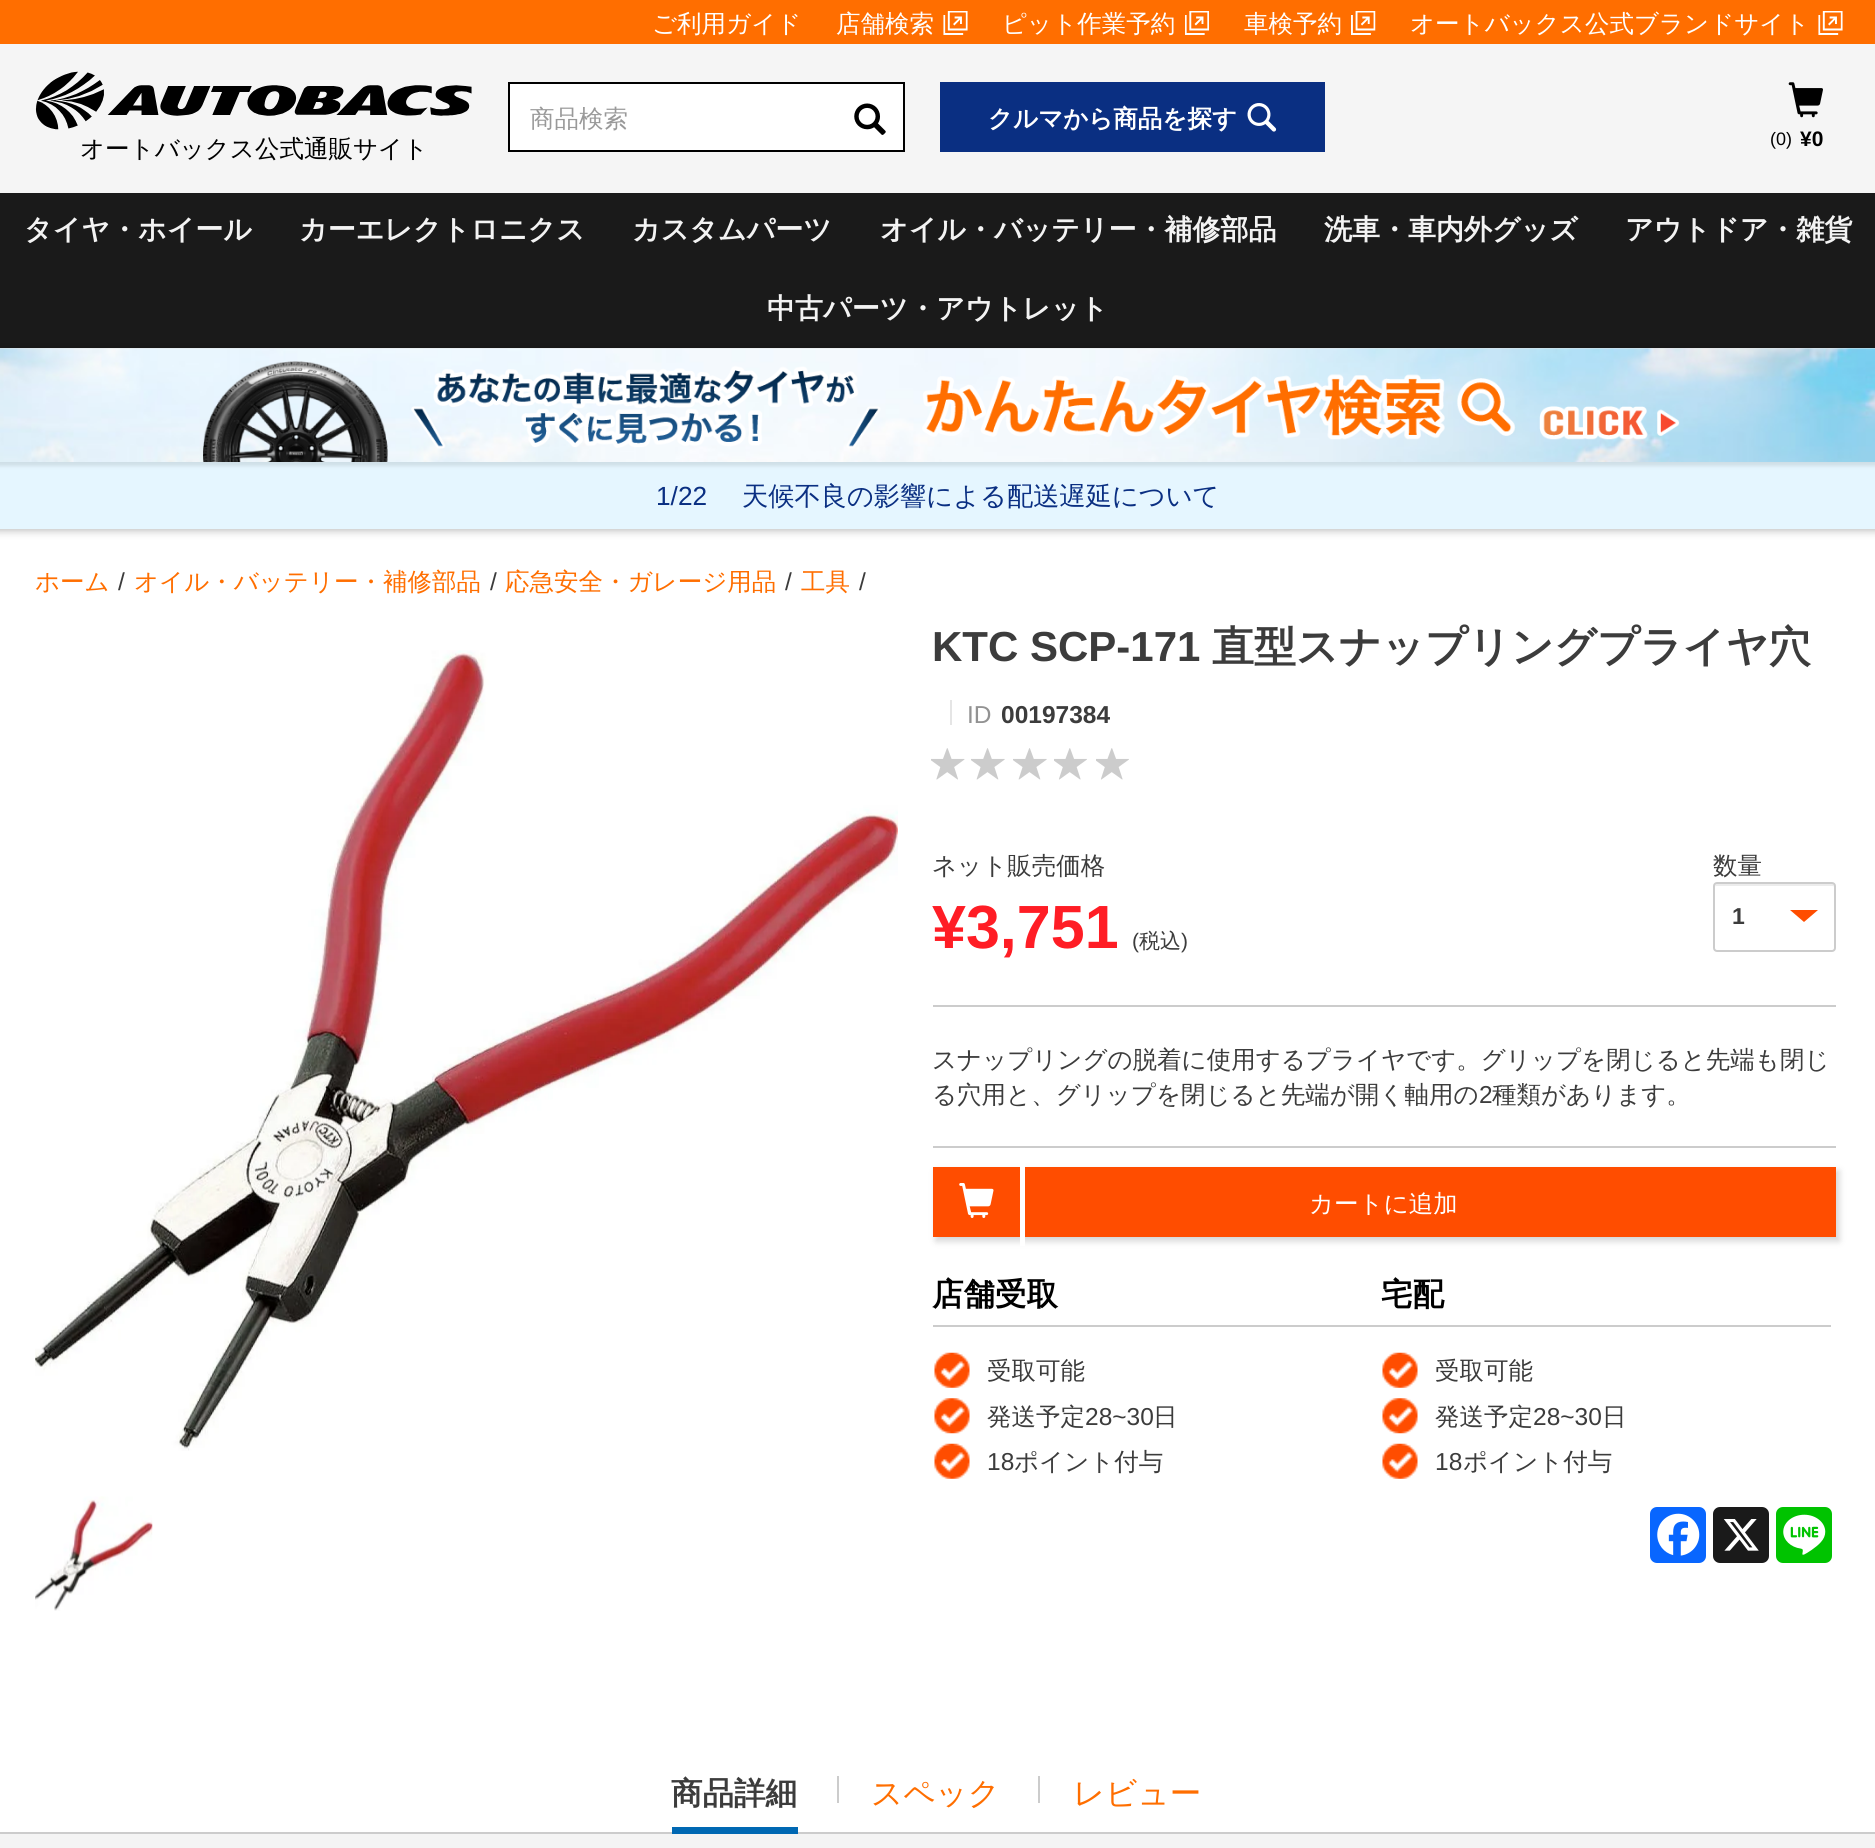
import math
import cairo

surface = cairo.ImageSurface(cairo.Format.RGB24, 1875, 1848)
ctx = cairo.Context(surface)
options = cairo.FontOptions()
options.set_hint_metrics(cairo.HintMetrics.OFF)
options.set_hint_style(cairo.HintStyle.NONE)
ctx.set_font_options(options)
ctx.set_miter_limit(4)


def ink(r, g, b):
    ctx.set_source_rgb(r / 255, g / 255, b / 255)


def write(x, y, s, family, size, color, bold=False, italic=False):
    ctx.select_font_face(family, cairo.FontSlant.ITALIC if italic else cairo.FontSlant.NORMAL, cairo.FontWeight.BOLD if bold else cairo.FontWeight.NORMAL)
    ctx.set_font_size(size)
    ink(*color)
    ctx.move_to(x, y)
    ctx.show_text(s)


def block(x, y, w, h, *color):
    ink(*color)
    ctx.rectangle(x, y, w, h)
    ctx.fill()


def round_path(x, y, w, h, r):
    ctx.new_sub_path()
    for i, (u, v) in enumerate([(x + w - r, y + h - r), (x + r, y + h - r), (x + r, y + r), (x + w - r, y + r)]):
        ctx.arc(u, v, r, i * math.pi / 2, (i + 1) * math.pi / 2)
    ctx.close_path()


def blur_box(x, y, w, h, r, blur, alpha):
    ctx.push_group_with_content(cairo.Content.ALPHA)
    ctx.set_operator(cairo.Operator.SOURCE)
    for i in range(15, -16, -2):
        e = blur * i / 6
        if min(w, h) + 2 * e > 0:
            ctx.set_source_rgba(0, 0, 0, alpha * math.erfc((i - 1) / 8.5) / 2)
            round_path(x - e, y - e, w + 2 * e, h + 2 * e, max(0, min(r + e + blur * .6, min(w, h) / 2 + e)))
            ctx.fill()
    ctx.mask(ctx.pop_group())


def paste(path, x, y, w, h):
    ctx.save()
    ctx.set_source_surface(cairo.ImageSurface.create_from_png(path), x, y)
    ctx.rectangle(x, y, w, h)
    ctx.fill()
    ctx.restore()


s1 = dict(family="WenQuanYi Zen Hei Medium", size=24.5, color=(255, 255, 255))
s2 = dict(family="WenQuanYi Zen Hei Medium", size=24.5, color=(0, 0, 0))
s3 = dict(family="WenQuanYi Zen Hei Medium", size=24.5, color=(153, 153, 153))
s4 = dict(family="WenQuanYi Zen Hei", size=24.5, color=(255, 255, 255), bold=True)
s5 = dict(family="Liberation Sans", size=18, color=(0, 0, 0))
s6 = dict(family="Liberation Sans", size=21, color=(0, 0, 0), bold=True)
s7 = dict(family="WenQuanYi Zen Hei", size=28, color=(243, 243, 243), bold=True)
s8 = dict(family="Liberation Sans", size=26.25, color=(10, 47, 130))
s9 = dict(family="WenQuanYi Zen Hei Medium", size=26.25, color=(10, 47, 130))
s10 = dict(family="WenQuanYi Zen Hei Medium", size=24.5, color=(255, 110, 0))
s11 = dict(family="Liberation Sans", size=24.5, color=(60, 60, 60))
s12 = dict(family="Liberation Sans", size=42, color=(60, 60, 60), bold=True)
s13 = dict(family="WenQuanYi Zen Hei", size=42, color=(60, 60, 60), bold=True)
s14 = dict(family="Liberation Sans", size=24.5, color=(146, 146, 146))
s15 = dict(family="Liberation Sans", size=24.5, color=(60, 60, 60), bold=True)
s16 = dict(family="WenQuanYi Zen Hei Medium", size=24.5, color=(60, 60, 60))
s17 = dict(family="Liberation Sans", size=61, color=(255, 29, 37), bold=True)
s18 = dict(family="Liberation Sans", size=21, color=(60, 60, 60))
s19 = dict(family="WenQuanYi Zen Hei Medium", size=21, color=(60, 60, 60))
s20 = dict(family="Liberation Sans", size=23, color=(60, 60, 60), bold=True)
s21 = dict(family="WenQuanYi Zen Hei", size=31.5, color=(0, 0, 0), bold=True)
s22 = dict(family="WenQuanYi Zen Hei", size=31.5, color=(60, 60, 60), bold=True)
s23 = dict(family="WenQuanYi Zen Hei Medium", size=31.5, color=(255, 110, 0))

ink(255, 255, 255)
ctx.paint()
block(0, 0, 1875, 44, 255, 110, 0)
write(652, 32, "ご利用ガイド", **s1)
write(836, 32, "店舗検索", **s1)
paste("pic1.png", 943, 11, 25, 24)
write(1002, 32, "ピット作業予約", **s1)
paste("pic2.png", 1185, 11, 24, 24)
write(1244, 32, "車検予約", **s1)
paste("pic3.png", 1351, 11, 25, 24)
write(1410, 32, "オートバックス公式ブランドサイト", **s1)
paste("pic1.png", 1818, 11, 25, 24)
block(0, 44, 1875, 149, 245, 245, 245)
paste("pic4.png", 35, 71, 437, 59)
write(80, 157, "オートバックス公式通販サイト", **s2)
ink(255, 255, 255)
ctx.rectangle(509, 83, 395, 68)
ctx.fill_preserve()
ink(0, 0, 0)
ctx.stroke()
write(530, 127, "商品検索", **s3)
paste("pic5.png", 854, 103, 32, 32)
block(940, 82, 385, 70, 10, 47, 130)
write(988, 127, "クルマから商品を探す", **s4)
paste("pic6.png", 1247, 103, 30, 29)
paste("pic7.png", 1788, 82, 35, 36)
write(1770, 145, "(0)", **s5)
write(1800, 146, "¥0", **s6)
block(0, 193, 1875, 155, 26, 26, 26)
write(24, 239, "タイヤ・ホイール", **s7)
write(299, 239, "カーエレクトロニクス", **s7)
write(632, 239, "カスタムパーツ", **s7)
write(880, 239, "オイル・バッテリー・補修部品", **s7)
write(1324, 239, "洗車・車内外グッズ", **s7)
write(1625, 239, "アウトドア・雑貨", **s7)
write(767, 318, "中古パーツ・アウトレット", **s7)
ink(0, 0, 0)
blur_box(-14, 350, 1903, 180, 0, 4.5, 0.3)
block(0, 462, 1875, 67, 229, 246, 255)
ink(0, 0, 0)
blur_box(-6, 352, 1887, 114, 0, 2, 0.1)
paste("pic8.png", 0, 348, 1875, 114)
paste("pic9.png", 203, 361, 1477, 101)
write(656, 505, "1/22", **s8)
write(742, 505, "天候不良の影響による配送遅延について", **s9)
write(35, 590, "ホーム", **s10)
write(118, 590, "/", **s11)
write(134, 590, "オイル・バッテリー・補修部品", **s10)
write(490, 590, "/", **s11)
write(505, 590, "応急安全・ガレージ用品", **s10)
write(785, 590, "/", **s11)
write(801, 590, "工具", **s10)
write(859, 590, "/", **s11)
paste("pic10.png", 35, 650, 863, 801)
paste("pic11.png", 35, 1496, 118, 115)
write(932, 661, "KTC SCP-171", **s12)
write(1212, 661, "直型スナップリングプライヤ穴", **s13)
block(950, 700, 2, 25, 229, 229, 229)
write(967, 723, "ID", **s14)
write(1001, 723, "00197384", **s15)
paste("pic12.png", 931, 748, 34, 32)
paste("pic13.png", 971, 748, 34, 32)
paste("pic13.png", 1013, 748, 34, 32)
paste("pic14.png", 1054, 748, 33, 32)
paste("pic14.png", 1096, 748, 33, 32)
write(932, 874, "ネット販売価格", **s16)
write(932, 948, "¥3,751", **s17)
write(1132, 948, "(", **s18)
write(1139, 948, "税込", **s19)
write(1181, 948, ")", **s18)
write(1713, 874, "数量", **s16)
ink(236, 236, 236)
ctx.new_path()
ctx.move_to(1717, 886)
ctx.line_to(1832, 886)
ctx.curve_to(1833, 886, 1834, 886, 1834, 887)
ctx.curve_to(1834, 886, 1834, 885, 1833, 884)
ctx.line_to(1736, 884)
ctx.curve_to(1730, 884, 1715, 880, 1715, 887)
ctx.curve_to(1715, 886, 1716, 886, 1717, 886)
ctx.close_path()
ctx.fill()
ink(255, 77, 0)
ctx.new_path()
ctx.move_to(1790, 910)
ctx.line_to(1818, 910)
ctx.line_to(1804, 922)
ctx.close_path()
ctx.fill()
round_path(1714, 883, 121, 68, 3)
ink(204, 204, 204)
ctx.stroke()
write(1732, 924, "1", **s20)
block(933, 1005, 903, 2, 204, 204, 204)
write(932, 1068, "スナップリングの脱着に使用するプライヤです。グリップを閉じると先端も閉じ", **s16)
write(932, 1103, "る穴用と、グリップを閉じると先端が開く軸用の", **s16)
write(1479, 1103, "2", **s11)
write(1492, 1103, "種類があります。", **s16)
block(933, 1146, 903, 2, 204, 204, 204)
ink(77, 77, 77)
blur_box(936, 1171, 903, 70, 0, 3.5, 0.25)
block(933, 1167, 903, 70, 255, 77, 0)
paste("pic15.png", 959, 1183, 35, 35)
block(1020, 1162, 5, 84, 255, 255, 255)
write(1309, 1212, "カートに追加", **s1)
block(933, 1325, 898, 2, 204, 204, 204)
write(932, 1305, "店舗受取", **s21)
paste("pic16.png", 934, 1352, 36, 36)
write(987, 1379, "受取可能", **s16)
paste("pic17.png", 934, 1398, 36, 36)
write(987, 1425, "発送予定", **s16)
write(1085, 1425, "28~30", **s11)
write(1153, 1425, "日", **s16)
paste("pic16.png", 934, 1443, 36, 36)
write(987, 1470, "18", **s11)
write(1014, 1470, "ポイント付与", **s16)
write(1381, 1305, "宅配", **s21)
paste("pic16.png", 1382, 1352, 36, 36)
write(1435, 1379, "受取可能", **s16)
paste("pic17.png", 1382, 1398, 36, 36)
write(1435, 1425, "発送予定", **s16)
write(1533, 1425, "28~30", **s11)
write(1602, 1425, "日", **s16)
paste("pic16.png", 1382, 1443, 36, 36)
write(1435, 1470, "18", **s11)
write(1463, 1470, "ポイント付与", **s16)
ink(8, 102, 255)
round_path(1650, 1507, 56, 56, 7)
ctx.fill()
paste("pic18.png", 1657, 1513, 43, 43)
ink(26, 26, 26)
round_path(1713, 1507, 56, 56, 7)
ctx.fill()
paste("pic19.png", 1723, 1519, 36, 32)
ink(0, 195, 0)
round_path(1776, 1507, 56, 56, 7)
ctx.fill()
paste("pic20.png", 1783, 1514, 43, 41)
block(0, 1832, 1875, 2, 204, 204, 204)
block(672, 1827, 126, 7, 0, 104, 179)
write(671, 1804, "商品詳細", **s22)
block(837, 1776, 2, 27, 204, 204, 204)
write(871, 1804, "スペック", **s23)
block(1038, 1776, 2, 27, 204, 204, 204)
write(1073, 1804, "レビュー", **s23)
block(0, 1834, 1875, 14, 244, 244, 244)
surface.write_to_png("screenshot.png")
